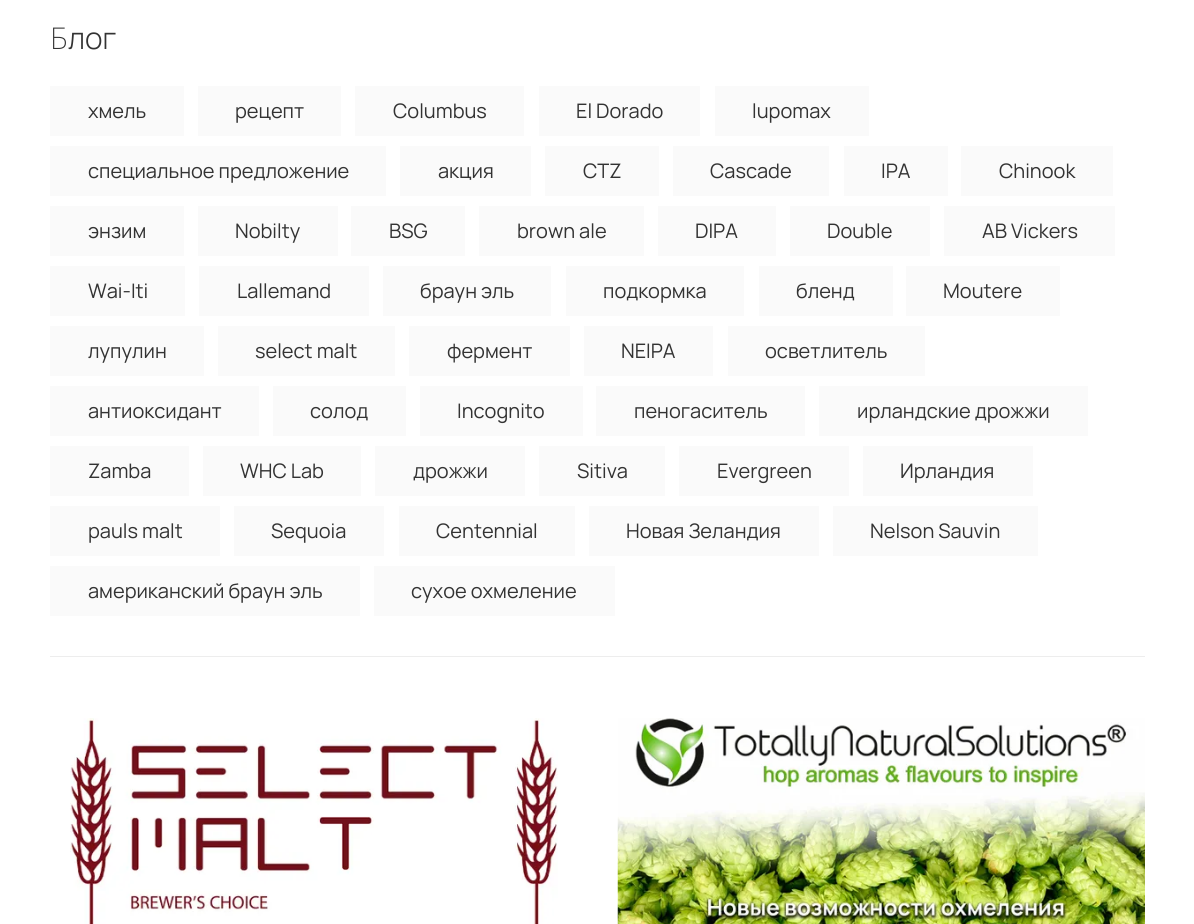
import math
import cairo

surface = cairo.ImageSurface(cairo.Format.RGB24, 1194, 924)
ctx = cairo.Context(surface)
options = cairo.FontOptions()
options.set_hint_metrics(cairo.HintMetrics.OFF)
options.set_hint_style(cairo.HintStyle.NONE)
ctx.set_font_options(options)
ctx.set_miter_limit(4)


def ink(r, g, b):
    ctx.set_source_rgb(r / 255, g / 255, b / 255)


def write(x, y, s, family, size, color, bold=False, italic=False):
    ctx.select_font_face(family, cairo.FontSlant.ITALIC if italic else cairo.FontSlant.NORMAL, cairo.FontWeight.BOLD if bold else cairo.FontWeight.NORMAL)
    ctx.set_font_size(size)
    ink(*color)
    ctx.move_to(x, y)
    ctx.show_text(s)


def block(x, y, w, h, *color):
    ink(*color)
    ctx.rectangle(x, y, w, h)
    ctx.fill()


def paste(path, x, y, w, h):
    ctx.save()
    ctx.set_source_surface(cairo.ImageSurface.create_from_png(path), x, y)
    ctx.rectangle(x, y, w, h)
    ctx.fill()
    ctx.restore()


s1 = dict(family="Noto Sans ExtraLight", size=30, color=(51, 51, 51))
s2 = dict(family="Manrope Light", size=30, color=(51, 51, 51))
s3 = dict(family="Manrope", size=20, color=(51, 51, 51))

ink(255, 255, 255)
ctx.paint()
write(50, 49, "Б", **s1)
write(68, 49, "лог", **s2)
block(50, 86, 134, 50, 250, 250, 250)
write(88, 118, "хмель", **s3)
block(198, 86, 143, 50, 250, 250, 250)
write(235, 118, "рецепт", **s3)
block(355, 86, 169, 50, 250, 250, 250)
write(393, 118, "Columbus", **s3)
block(539, 86, 161, 50, 250, 250, 250)
write(576, 118, "El Dorado", **s3)
block(715, 86, 154, 50, 250, 250, 250)
write(752, 118, "lupomax", **s3)
block(50, 146, 336, 50, 250, 250, 250)
write(88, 178, "специальное предложение", **s3)
block(400, 146, 131, 50, 250, 250, 250)
write(438, 178, "акция", **s3)
block(545, 146, 114, 50, 250, 250, 250)
write(583, 178, "CTZ", **s3)
block(673, 146, 156, 50, 250, 250, 250)
write(710, 178, "Cascade", **s3)
block(844, 146, 104, 50, 250, 250, 250)
write(881, 178, "IPA", **s3)
block(961, 146, 152, 50, 250, 250, 250)
write(999, 178, "Chinook", **s3)
block(50, 206, 134, 50, 250, 250, 250)
write(88, 238, "энзим", **s3)
block(198, 206, 140, 50, 250, 250, 250)
write(235, 238, "Nobilty", **s3)
block(351, 206, 114, 50, 250, 250, 250)
write(389, 238, "BSG", **s3)
block(479, 206, 165, 50, 250, 250, 250)
write(517, 238, "brown ale", **s3)
block(658, 206, 118, 50, 250, 250, 250)
write(695, 238, "DIPA", **s3)
block(790, 206, 140, 50, 250, 250, 250)
write(827, 238, "Double", **s3)
block(944, 206, 171, 50, 250, 250, 250)
write(982, 238, "AB Vickers", **s3)
block(50, 266, 135, 50, 250, 250, 250)
write(88, 298, "Wai-Iti", **s3)
block(199, 266, 170, 50, 250, 250, 250)
write(237, 298, "Lallemand", **s3)
block(383, 266, 168, 50, 250, 250, 250)
write(420, 298, "браун эль", **s3)
block(566, 266, 178, 50, 250, 250, 250)
write(603, 298, "подкормка", **s3)
block(759, 266, 134, 50, 250, 250, 250)
write(796, 298, "бленд", **s3)
block(906, 266, 154, 50, 250, 250, 250)
write(943, 298, "Moutere", **s3)
block(50, 326, 154, 50, 250, 250, 250)
write(88, 358, "лупулин", **s3)
block(218, 326, 177, 50, 250, 250, 250)
write(255, 358, "select malt", **s3)
block(409, 326, 161, 50, 250, 250, 250)
write(447, 358, "фермент", **s3)
block(584, 326, 129, 50, 250, 250, 250)
write(621, 358, "NEIPA", **s3)
block(728, 326, 197, 50, 250, 250, 250)
write(765, 358, "осветлитель", **s3)
block(50, 386, 209, 50, 250, 250, 250)
write(88, 418, "антиоксидант", **s3)
block(273, 386, 133, 50, 250, 250, 250)
write(310, 418, "солод", **s3)
block(420, 386, 163, 50, 250, 250, 250)
write(457, 418, "Incognito", **s3)
block(596, 386, 209, 50, 250, 250, 250)
write(634, 418, "пеногаситель", **s3)
block(819, 386, 269, 50, 250, 250, 250)
write(857, 418, "ирландские дрожжи", **s3)
block(50, 446, 139, 50, 250, 250, 250)
write(88, 478, "Zamba", **s3)
block(203, 446, 158, 50, 250, 250, 250)
write(240, 478, "WHC Lab", **s3)
block(375, 446, 150, 50, 250, 250, 250)
write(413, 478, "дрожжи", **s3)
block(539, 446, 126, 50, 250, 250, 250)
write(577, 478, "Sitiva", **s3)
block(679, 446, 170, 50, 250, 250, 250)
write(717, 478, "Evergreen", **s3)
block(863, 446, 170, 50, 250, 250, 250)
write(900, 478, "Ирландия", **s3)
block(50, 506, 170, 50, 250, 250, 250)
write(88, 538, "pauls malt", **s3)
block(234, 506, 150, 50, 250, 250, 250)
write(271, 538, "Sequoia", **s3)
block(399, 506, 176, 50, 250, 250, 250)
write(436, 538, "Centennial", **s3)
block(589, 506, 230, 50, 250, 250, 250)
write(626, 538, "Новая Зеландия", **s3)
block(833, 506, 205, 50, 250, 250, 250)
write(870, 538, "Nelson Sauvin", **s3)
block(50, 566, 310, 50, 250, 250, 250)
write(88, 598, "американский браун эль", **s3)
block(374, 566, 241, 50, 250, 250, 250)
write(411, 598, "сухое охмеление", **s3)
block(50, 656, 1095, 1, 237, 237, 237)
paste("pic1.png", 70, 718, 488, 206)
paste("pic2.png", 617, 718, 528, 206)
surface.write_to_png("screenshot.png")
